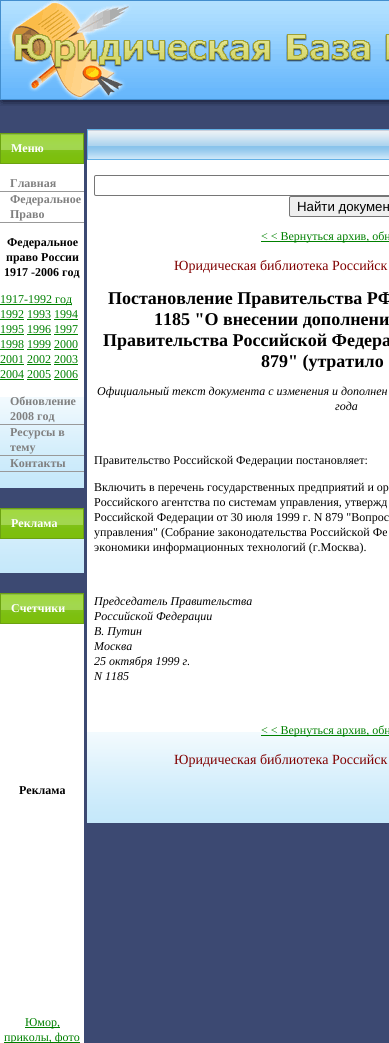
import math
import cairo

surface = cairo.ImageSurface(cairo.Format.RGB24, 389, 1043)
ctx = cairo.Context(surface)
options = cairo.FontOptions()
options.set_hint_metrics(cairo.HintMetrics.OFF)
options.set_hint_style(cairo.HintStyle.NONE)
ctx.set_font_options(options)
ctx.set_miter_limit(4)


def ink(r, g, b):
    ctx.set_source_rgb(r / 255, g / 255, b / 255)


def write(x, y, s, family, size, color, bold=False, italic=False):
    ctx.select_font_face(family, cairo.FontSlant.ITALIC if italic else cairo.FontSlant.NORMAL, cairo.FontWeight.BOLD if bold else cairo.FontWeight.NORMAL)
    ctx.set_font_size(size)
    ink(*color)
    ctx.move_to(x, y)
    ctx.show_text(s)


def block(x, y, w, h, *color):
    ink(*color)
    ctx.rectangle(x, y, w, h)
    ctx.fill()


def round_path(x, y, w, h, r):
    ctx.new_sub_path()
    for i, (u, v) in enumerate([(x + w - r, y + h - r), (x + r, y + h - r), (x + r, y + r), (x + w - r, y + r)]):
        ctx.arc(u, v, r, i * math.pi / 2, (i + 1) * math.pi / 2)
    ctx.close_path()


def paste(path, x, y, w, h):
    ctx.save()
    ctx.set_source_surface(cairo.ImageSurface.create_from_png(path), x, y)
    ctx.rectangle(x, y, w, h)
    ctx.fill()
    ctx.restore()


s1 = dict(family="Liberation Serif", size=12, color=(255, 255, 255), bold=True)
s2 = dict(family="Liberation Serif", size=12, color=(128, 128, 128), bold=True)
s3 = dict(family="Liberation Serif", size=12, color=(0, 0, 0), bold=True)
s4 = dict(family="Liberation Serif", size=12, color=(0, 128, 0))
s5 = dict(family="Liberation Sans", size=13.25, color=(0, 0, 0))
s6 = dict(family="Liberation Serif", size=14, color=(128, 0, 0))
s7 = dict(family="Liberation Serif", size=18, color=(0, 0, 0), bold=True)
s8 = dict(family="Liberation Serif", size=12, color=(0, 0, 0), italic=True)
s9 = dict(family="Liberation Serif", size=12, color=(0, 0, 0))

ink(60, 73, 114)
ctx.paint()
paste("pic1.png", 0, 105, 389, 1)
paste("pic2.png", 0, 0, 389, 105)
block(0, 164, 84, 233, 255, 255, 255)
paste("pic3.png", 0, 397, 84, 91)
paste("pic4.png", 1, 134, 82, 29)
ctx.rectangle(0.5, 133.5, 83, 30)
ink(107, 162, 17)
ctx.set_line_width(1)
ctx.stroke()
write(11, 152, "Меню", **s1)
block(0, 191, 84, 1, 153, 153, 153)
write(10, 187, "Главная", **s2)
block(0, 222, 84, 1, 153, 153, 153)
write(10, 203, "Федеральное", **s2)
write(10, 218, "Право", **s2)
write(7, 246, "Федеральное", **s3)
write(6, 261, "право России", **s3)
write(4, 276, "1917 -2006 год", **s3)
block(0, 304, 72, 1, 0, 128, 0)
write(0, 303, "1917-1992 год", **s4)
write(0, 318, "1992 1993 1994", **s4)
block(0, 319, 24, 1, 0, 128, 0)
block(27, 319, 24, 1, 0, 128, 0)
block(54, 319, 24, 1, 0, 128, 0)
write(0, 333, "1995 1996 1997", **s4)
block(0, 334, 24, 1, 0, 128, 0)
block(27, 334, 24, 1, 0, 128, 0)
block(54, 334, 24, 1, 0, 128, 0)
write(0, 348, "1998 1999 2000", **s4)
block(0, 349, 24, 1, 0, 128, 0)
block(27, 349, 24, 1, 0, 128, 0)
block(54, 349, 24, 1, 0, 128, 0)
write(0, 363, "2001 2002 2003", **s4)
block(0, 364, 24, 1, 0, 128, 0)
block(27, 364, 24, 1, 0, 128, 0)
block(54, 364, 24, 1, 0, 128, 0)
write(0, 378, "2004 2005 2006", **s4)
block(0, 379, 24, 1, 0, 128, 0)
block(27, 379, 24, 1, 0, 128, 0)
block(54, 379, 24, 1, 0, 128, 0)
block(0, 424, 84, 1, 153, 153, 153)
write(10, 405, "Обновление", **s2)
write(10, 420, "2008 год", **s2)
block(0, 455, 84, 1, 153, 153, 153)
write(10, 436, "Ресурсы в", **s2)
write(10, 451, "тему", **s2)
block(0, 471, 84, 1, 153, 153, 153)
write(10, 467, "Контакты", **s2)
paste("pic5.png", 0, 539, 84, 34)
paste("pic4.png", 1, 509, 82, 29)
ctx.rectangle(0.5, 508.5, 83, 30)
ink(107, 162, 17)
ctx.stroke()
write(11, 527, "Реклама", **s1)
block(0, 624, 84, 419, 255, 255, 255)
paste("pic4.png", 1, 594, 82, 29)
ctx.rectangle(0.5, 593.5, 83, 30)
ink(107, 162, 17)
ctx.stroke()
write(11, 612, "Счетчики", **s1)
write(19, 794, "Реклама", **s3)
block(25, 1027, 35, 1, 0, 128, 0)
write(25, 1026, "Юмор,", **s4)
block(4, 1042, 76, 1, 0, 128, 0)
write(4, 1041, "приколы, фото", **s4)
block(87, 160, 302, 572, 255, 255, 255)
paste("pic6.png", 87, 732, 302, 91)
paste("pic7.png", 88, 130, 301, 29)
ctx.rectangle(87.5, 129.5, 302, 30)
ink(100, 177, 230)
ctx.stroke()
round_path(94.5, 175.5, 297, 20, 1.5)
ink(118, 118, 118)
ctx.stroke()
ink(239, 239, 239)
round_path(289.5, 196.5, 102, 20, 1.5)
ctx.fill_preserve()
ink(118, 118, 118)
ctx.stroke()
write(297, 211, "Найти докумен", **s5)
block(261, 241, 128, 1, 0, 128, 0)
write(261, 240, "< < Вернуться архив, обн", **s4)
write(174, 270, "Юридическая библиотека Российск", **s6)
write(108, 304, "Постановление Правительства РФ", **s7)
write(154, 325, "1185 \"О внесении дополнени", **s7)
write(103, 346, "Правительства Российской Федера", **s7)
write(261, 367, "879\" (утратило", **s7)
write(97, 395, "Официальный текст документа с изменения и дополнен", **s8)
write(335, 410, "года", **s8)
write(94, 464, "Правительство Российской Федерации постановляет:", **s9)
write(94, 491, "Включить в перечень государственных предприятий и ор", **s9)
write(94, 506, "Российского агентства по системам управления, утвержд", **s9)
write(94, 521, "Российской Федерации от 30 июля 1999 г. N 879 \"Вопрос", **s9)
write(94, 536, "управления\" (Собрание законодательства Российской Фе", **s9)
write(94, 551, "экономики информационных технологий (г.Москва).", **s9)
write(94, 605, "Председатель Правительства", **s8)
write(94, 620, "Российской Федерации", **s8)
write(94, 635, "В. Путин", **s8)
write(94, 650, "Москва", **s8)
write(94, 665, "25 октября 1999 г.", **s8)
write(94, 680, "N 1185", **s8)
block(261, 735, 128, 1, 0, 128, 0)
write(261, 734, "< < Вернуться архив, обн", **s4)
write(174, 764, "Юридическая библиотека Российск", **s6)
surface.write_to_png("screenshot.png")
